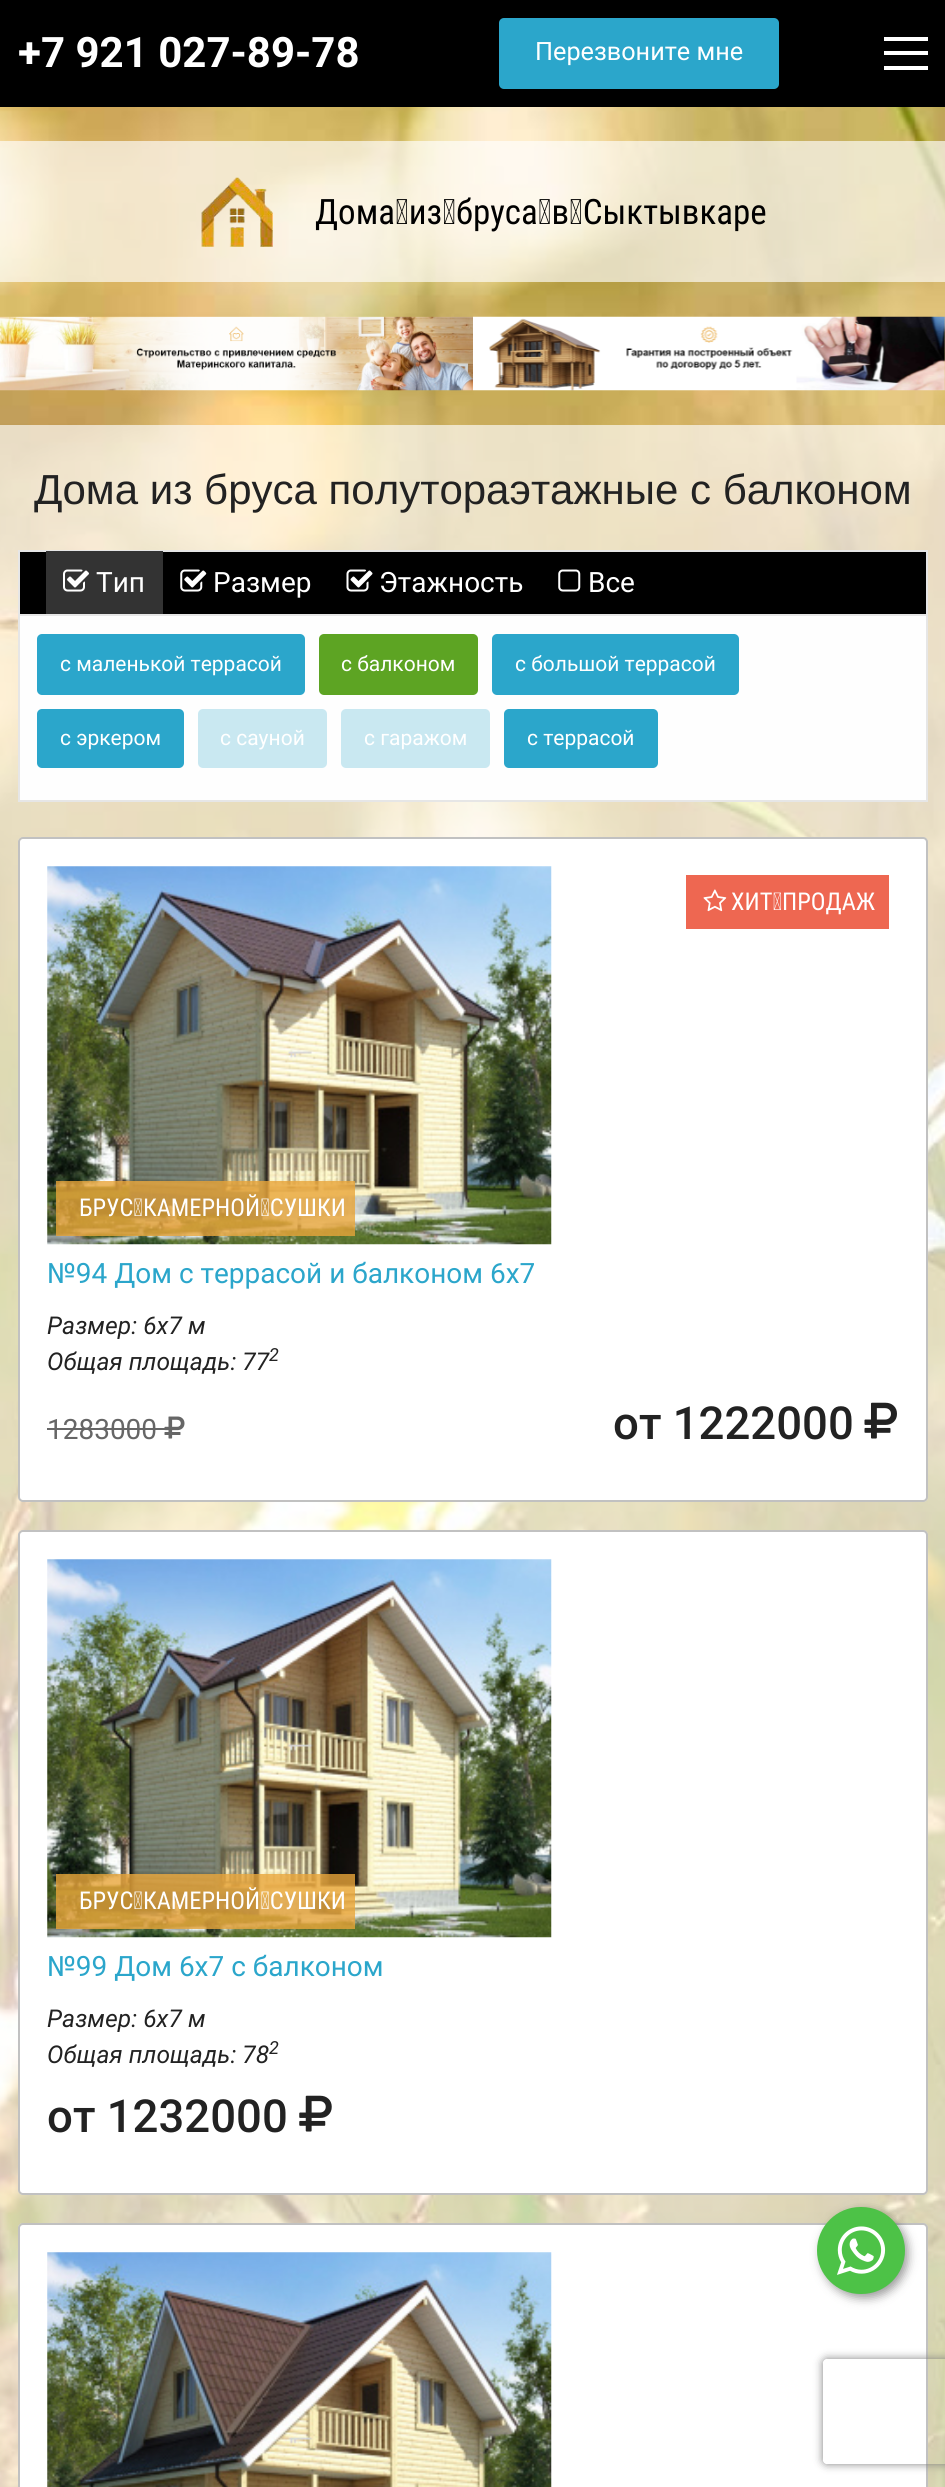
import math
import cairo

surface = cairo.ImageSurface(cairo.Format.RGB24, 945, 2487)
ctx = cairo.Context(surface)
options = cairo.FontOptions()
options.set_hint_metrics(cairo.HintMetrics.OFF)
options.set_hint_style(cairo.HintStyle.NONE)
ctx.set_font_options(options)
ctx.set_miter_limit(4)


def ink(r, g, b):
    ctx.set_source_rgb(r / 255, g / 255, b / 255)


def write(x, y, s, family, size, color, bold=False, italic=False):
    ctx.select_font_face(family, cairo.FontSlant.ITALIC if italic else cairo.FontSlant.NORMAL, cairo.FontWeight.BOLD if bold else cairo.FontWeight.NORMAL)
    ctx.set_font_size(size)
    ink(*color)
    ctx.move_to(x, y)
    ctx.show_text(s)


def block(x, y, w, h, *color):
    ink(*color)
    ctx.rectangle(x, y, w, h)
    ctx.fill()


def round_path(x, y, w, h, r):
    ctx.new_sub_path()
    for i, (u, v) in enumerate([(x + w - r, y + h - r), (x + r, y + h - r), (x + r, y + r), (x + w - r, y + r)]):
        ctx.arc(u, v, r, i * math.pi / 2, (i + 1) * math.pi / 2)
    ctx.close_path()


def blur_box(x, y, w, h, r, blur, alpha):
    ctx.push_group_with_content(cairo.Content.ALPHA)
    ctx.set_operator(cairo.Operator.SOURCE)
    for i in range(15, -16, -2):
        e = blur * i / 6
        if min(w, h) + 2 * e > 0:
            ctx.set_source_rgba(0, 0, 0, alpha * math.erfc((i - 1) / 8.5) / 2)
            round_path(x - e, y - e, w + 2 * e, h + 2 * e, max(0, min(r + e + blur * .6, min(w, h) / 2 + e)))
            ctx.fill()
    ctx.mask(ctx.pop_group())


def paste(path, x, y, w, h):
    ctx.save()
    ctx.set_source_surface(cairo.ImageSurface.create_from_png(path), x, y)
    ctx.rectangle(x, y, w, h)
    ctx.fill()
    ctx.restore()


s1 = dict(family="Roboto", size=42, color=(255, 255, 255), bold=True)
s2 = dict(family="Roboto", size=25.25, color=(255, 255, 255))
s3 = dict(family="Roboto Condensed", size=35, color=(0, 0, 0))
s4 = dict(family="Liberation Sans", size=42, color=(34, 34, 34))
s5 = dict(family="Roboto", size=28, color=(255, 255, 255))
s6 = dict(family="Roboto", size=21, color=(255, 255, 255))
s7 = dict(family="Roboto Condensed", size=24.5, color=(255, 255, 255))
s8 = dict(family="Roboto", size=28, color=(43, 166, 203))
s9 = dict(family="Roboto", size=24.5, color=(34, 34, 34), italic=True)
s10 = dict(family="Roboto", size=18, color=(34, 34, 34), italic=True)
s11 = dict(family="Roboto", size=28, color=(102, 102, 102))
s12 = dict(family="Roboto Medium", size=45.5, color=(34, 34, 34))

ink(255, 255, 255)
ctx.paint()
paste("pic1.png", 0, 107, 945, 2380)
block(0, 0, 945, 107, 0, 0, 0)
write(18, 67, "+7 921 027-89-78", **s1)
ink(43, 166, 203)
round_path(499, 18, 280, 71, 5)
ctx.fill()
write(535, 60, "Перезвоните мне", **s2)
block(884, 37, 44, 4, 255, 255, 255)
block(884, 51, 44, 4, 255, 255, 255)
block(884, 66, 44, 4, 255, 255, 255)
ctx.set_source_rgba(1, 1, 1, 0.65)
ctx.rectangle(0, 141, 945, 141)
ctx.fill()
paste("pic2.png", 201, 177, 72, 70)
write(315, 224, "Дома из бруса в Сыктывкаре", **s3)
paste("pic3.png", 0, 316, 473, 75)
paste("pic4.png", 473, 316, 472, 75)
ctx.set_source_rgba(1, 1, 1, 0.65)
ctx.rectangle(0, 425, 945, 2062)
ctx.fill()
write(34, 504, "Дома из бруса полутораэтажные с балконом", **s4)
ink(0, 0, 0)
ctx.rectangle(19, 551, 908, 64)
ctx.fill_preserve()
ink(230, 230, 230)
ctx.stroke()
block(46, 551, 117, 63, 51, 51, 51)
paste("pic5.png", 63, 569, 26, 23)
write(96, 592, "Тип", **s5)
paste("pic6.png", 180, 569, 27, 23)
write(213, 592, "Размер", **s5)
paste("pic7.png", 346, 569, 27, 23)
write(379, 592, "Этажность", **s5)
paste("pic8.png", 558, 569, 23, 23)
write(588, 592, "Все", **s5)
block(20, 616, 906, 184, 254, 254, 254)
block(926, 616, 2, 186, 230, 230, 230)
block(18, 800, 910, 2, 230, 230, 230)
block(18, 616, 2, 186, 230, 230, 230)
ink(43, 166, 203)
round_path(37, 634, 268, 61, 5)
ctx.fill()
write(60, 671, "с маленькой террасой", **s6)
ink(93, 164, 35)
round_path(319, 634, 159, 61, 5)
ctx.fill()
write(341, 671, "с балконом", **s6)
ink(43, 166, 203)
round_path(492, 634, 247, 61, 5)
ctx.fill()
write(515, 671, "с большой террасой", **s6)
ink(43, 166, 203)
round_path(37, 709, 147, 59, 5)
ctx.fill()
write(60, 745, "с эркером", **s6)
ink(201, 232, 241)
round_path(198, 709, 129, 59, 5)
ctx.fill()
write(220, 745, "с сауной", **s6)
ink(201, 232, 241)
round_path(341, 709, 149, 59, 5)
ctx.fill()
write(364, 745, "с гаражом", **s6)
ink(43, 166, 203)
round_path(504, 709, 154, 59, 5)
ctx.fill()
write(527, 745, "с террасой", **s6)
round_path(18, 837, 910, 665, 5)
ctx.fill()
round_path(19, 838, 908, 663, 4)
ctx.set_source_rgba(0.039, 0.039, 0.039, 0.25)
ctx.stroke()
paste("pic9.png", 47, 866, 505, 379)
block(686, 875, 203, 54, 238, 103, 81)
paste("pic10.png", 703, 889, 24, 23)
write(731, 910, "ХИТ ПРОДАЖ", **s7)
ctx.set_source_rgba(0.91, 0.647, 0.227, 0.8)
ctx.rectangle(56, 1181, 299, 55)
ctx.fill()
write(79, 1216, "БРУС КАМЕРНОЙ СУШКИ", **s7)
write(47, 1283, "№94 Дом с террасой и балконом 6х7", **s8)
write(47, 1334, "Размер: 6х7 м", **s9)
write(47, 1370, "Общая площадь: 77", **s9)
write(269, 1361, "2", **s10)
write(47, 1439, "1283000", **s11)
block(47, 1428, 118, 2, 102, 102, 102)
paste("pic11.png", 164, 1416, 21, 23)
write(613, 1439, "от 1222000", **s12)
paste("pic12.png", 864, 1402, 33, 37)
ink(255, 255, 255)
round_path(18, 1530, 910, 665, 5)
ctx.fill()
round_path(19, 1531, 908, 663, 4)
ctx.set_source_rgba(0.039, 0.039, 0.039, 0.25)
ctx.stroke()
paste("pic13.png", 47, 1559, 505, 379)
ctx.set_source_rgba(0.91, 0.647, 0.227, 0.8)
ctx.rectangle(56, 1874, 299, 55)
ctx.fill()
write(79, 1909, "БРУС КАМЕРНОЙ СУШКИ", **s7)
write(47, 1976, "№99 Дом 6х7 с балконом", **s8)
write(47, 2027, "Размер: 6х7 м", **s9)
write(47, 2063, "Общая площадь: 78", **s9)
write(269, 2054, "2", **s10)
write(47, 2132, "от 1232000", **s12)
paste("pic14.png", 299, 2095, 33, 37)
ink(255, 255, 255)
round_path(18, 2223, 910, 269, 5)
ctx.fill()
round_path(19, 2224, 908, 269, 4)
ctx.set_source_rgba(0.039, 0.039, 0.039, 0.25)
ctx.stroke()
paste("pic15.png", 47, 2252, 505, 235)
ink(0, 0, 0)
blur_box(821, 2210, 87, 88, 43.5, 5, 0.4)
ink(77, 194, 71)
round_path(817, 2207, 88, 87, 43.5)
ctx.fill()
paste("pic16.png", 837, 2226, 49, 49)
ctx.save()
ctx.set_fill_rule(cairo.FillRule.EVEN_ODD)
ctx.new_path()
ctx.move_to(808, 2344)
ctx.line_to(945, 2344)
ctx.line_to(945, 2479)
ctx.line_to(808, 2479)
ctx.close_path()
ctx.move_to(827, 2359)
ctx.line_to(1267, 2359)
ctx.curve_to(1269, 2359, 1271, 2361, 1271, 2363)
ctx.line_to(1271, 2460)
ctx.curve_to(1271, 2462, 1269, 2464, 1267, 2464)
ctx.line_to(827, 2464)
ctx.curve_to(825, 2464, 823, 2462, 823, 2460)
ctx.line_to(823, 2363)
ctx.curve_to(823, 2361, 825, 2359, 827, 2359)
ctx.close_path()
ctx.clip()
ink(128, 128, 128)
blur_box(823, 2359, 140, 105, 4, 4.5, 1)
ctx.restore()
surface.write_to_png("screenshot.png")
